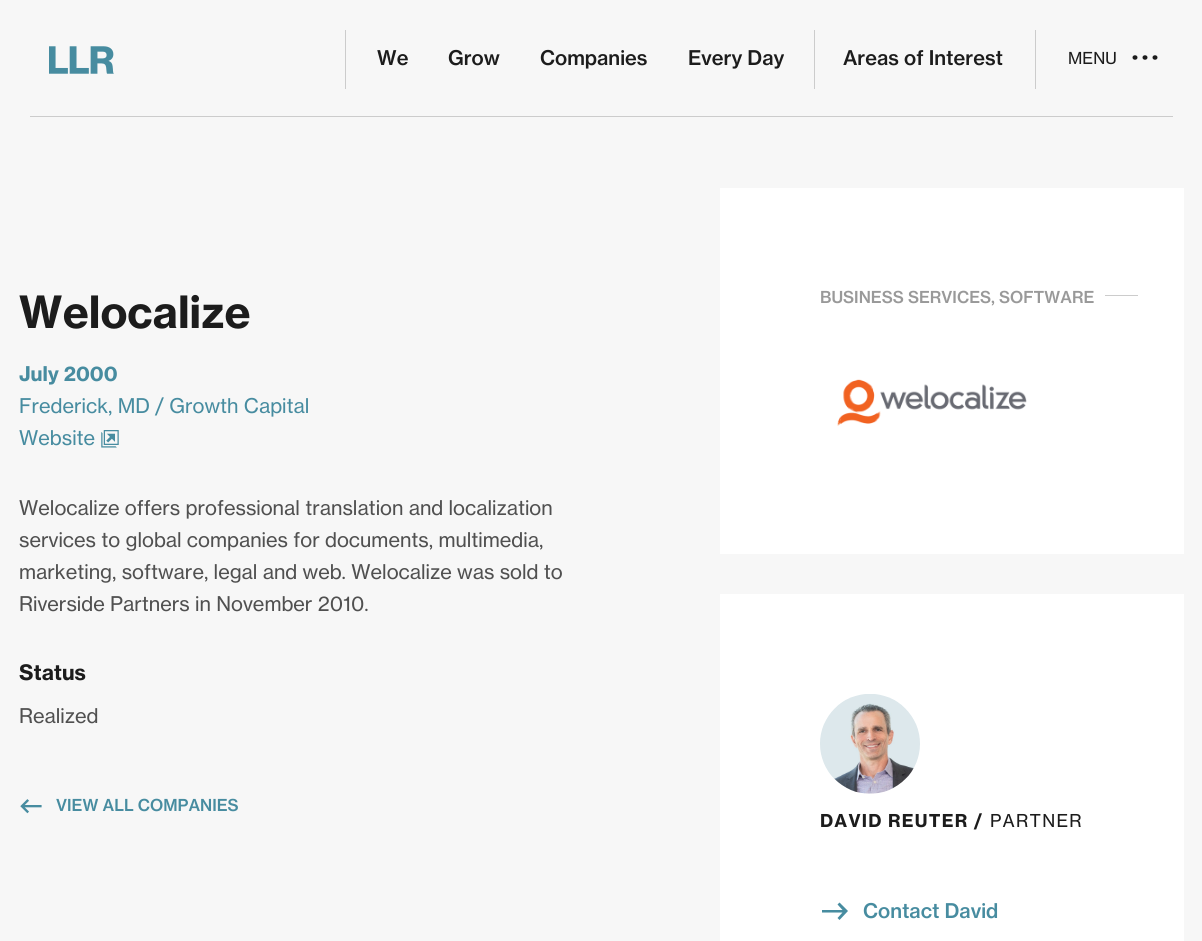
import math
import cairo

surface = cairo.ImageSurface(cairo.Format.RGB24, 1202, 941)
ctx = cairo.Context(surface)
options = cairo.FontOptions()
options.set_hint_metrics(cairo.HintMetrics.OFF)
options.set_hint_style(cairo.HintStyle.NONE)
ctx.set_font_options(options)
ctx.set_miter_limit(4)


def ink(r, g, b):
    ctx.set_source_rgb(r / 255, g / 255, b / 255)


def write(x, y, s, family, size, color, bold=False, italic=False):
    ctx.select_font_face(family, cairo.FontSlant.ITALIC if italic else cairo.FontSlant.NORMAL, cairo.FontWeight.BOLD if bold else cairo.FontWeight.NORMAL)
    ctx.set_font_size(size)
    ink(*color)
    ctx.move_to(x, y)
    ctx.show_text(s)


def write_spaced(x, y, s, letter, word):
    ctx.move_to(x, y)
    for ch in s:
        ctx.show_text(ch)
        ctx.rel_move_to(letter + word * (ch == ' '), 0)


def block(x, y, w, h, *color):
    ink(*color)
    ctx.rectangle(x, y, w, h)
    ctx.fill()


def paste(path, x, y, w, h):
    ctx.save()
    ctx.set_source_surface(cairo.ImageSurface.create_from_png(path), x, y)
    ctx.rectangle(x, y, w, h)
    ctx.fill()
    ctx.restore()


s1 = dict(family="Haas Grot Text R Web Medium", size=20, color=(28, 28, 28))
s2 = dict(family="Haas Grot Text R Web", size=16.25, color=(28, 28, 28))
s3 = dict(family="Haas Grot Text R Web", size=43.75, color=(28, 28, 28), bold=True)
s4 = dict(family="Haas Grot Text R Web", size=20, color=(71, 140, 160), bold=True)
s5 = dict(family="Haas Grot Text R Web", size=20, color=(71, 140, 160))
s6 = dict(family="Haas Grot Text R Web", size=20, color=(80, 80, 80))
s7 = dict(family="Haas Grot Text R Web", size=21, color=(28, 28, 28), bold=True)
s8 = dict(family="Haas Grot Text R Web Medium", size=16.25, color=(71, 140, 160))
s9 = dict(family="Haas Grot Text R Web Medium", size=16.25, color=(153, 153, 153))
s10 = dict(family="Haas Grot Text R Web Medium", size=20, color=(71, 140, 160))

ink(247, 247, 247)
ctx.paint()
block(30, 116, 1143, 1, 204, 204, 204)
paste("pic1.png", 49, 46, 65, 28)
block(345, 30, 1, 59, 204, 204, 204)
write(377, 65, "We", **s1)
write(448, 65, "Grow", **s1)
write(540, 65, "Companies", **s1)
write(688, 65, "Every Day", **s1)
block(814, 30, 1, 59, 204, 204, 204)
write(843, 65, "Areas of Interest", **s1)
block(1035, 30, 1, 59, 204, 204, 204)
write(1068, 64, "MENU", **s2)
ctx.new_path()
ctx.move_to(1142.5, 57.5)
ctx.curve_to(1142.5, 54.5, 1147.5, 54.5, 1147.5, 57.5)
ctx.curve_to(1147.5, 60.5, 1142.5, 60.5, 1142.5, 57.5)
ctx.close_path()
ctx.move_to(1132.5, 57.5)
ctx.curve_to(1132.5, 54.5, 1137.5, 54.5, 1137.5, 57.5)
ctx.curve_to(1137.5, 60.5, 1132.5, 60.5, 1132.5, 57.5)
ctx.close_path()
ctx.move_to(1152.5, 57.5)
ctx.curve_to(1152.5, 54.5, 1157.5, 54.5, 1157.5, 57.5)
ctx.curve_to(1157.5, 60.5, 1152.5, 60.5, 1152.5, 57.5)
ctx.close_path()
ctx.fill()
block(720, 188, 464, 366, 255, 255, 255)
block(720, 594, 464, 347, 255, 255, 255)
write(19, 328, "Welocalize", **s3)
write(19, 381, "July 2000", **s4)
write(19, 413, "Frederick, MD / Growth Capital", **s5)
write(19, 445, "Website", **s5)
paste("pic2.png", 101, 430, 18, 18)
write(19, 515, "Welocalize offers professional translation and localization", **s6)
write(19, 547, "services to global companies for documents, multimedia,", **s6)
write(19, 579, "marketing, software, legal and web. Welocalize was sold to", **s6)
write(19, 611, "Riverside Partners in November 2010.", **s6)
write(19, 680, "Status", **s7)
write(19, 723, "Realized", **s6)
paste("pic3.png", 20, 799, 22, 15)
write(56, 811, "VIEW ALL COMPANIES", **s8)
write(820, 303, "BUSINESS SERVICES, SOFTWARE", **s9)
block(1105, 295, 33, 1, 204, 204, 204)
paste("pic4.png", 837, 379, 190, 47)
paste("pic5.png", 820, 694, 100, 100)
ctx.select_font_face("Haas Grot Text R Web", cairo.FontSlant.NORMAL, cairo.FontWeight.BOLD)
ctx.set_font_size(17.5)
ink(28, 28, 28)
write_spaced(820, 827, "DAVID REUTER /", 1.25, 0)
ctx.select_font_face("Haas Grot Text R Web")
write_spaced(990, 827, "PARTNER", 1.25, 0)
write(863, 918, "Contact David", **s10)
ctx.new_path()
ctx.move_to(822, 910)
ctx.line_to(842.5, 910)
ctx.line_to(837.5, 904.5)
ctx.line_to(839.5, 902.5)
ctx.line_to(848, 911)
ctx.line_to(839.5, 920)
ctx.line_to(837.5, 918)
ctx.line_to(842.5, 912.5)
ctx.line_to(822, 912.5)
ctx.close_path()
ctx.fill()
surface.write_to_png("screenshot.png")
